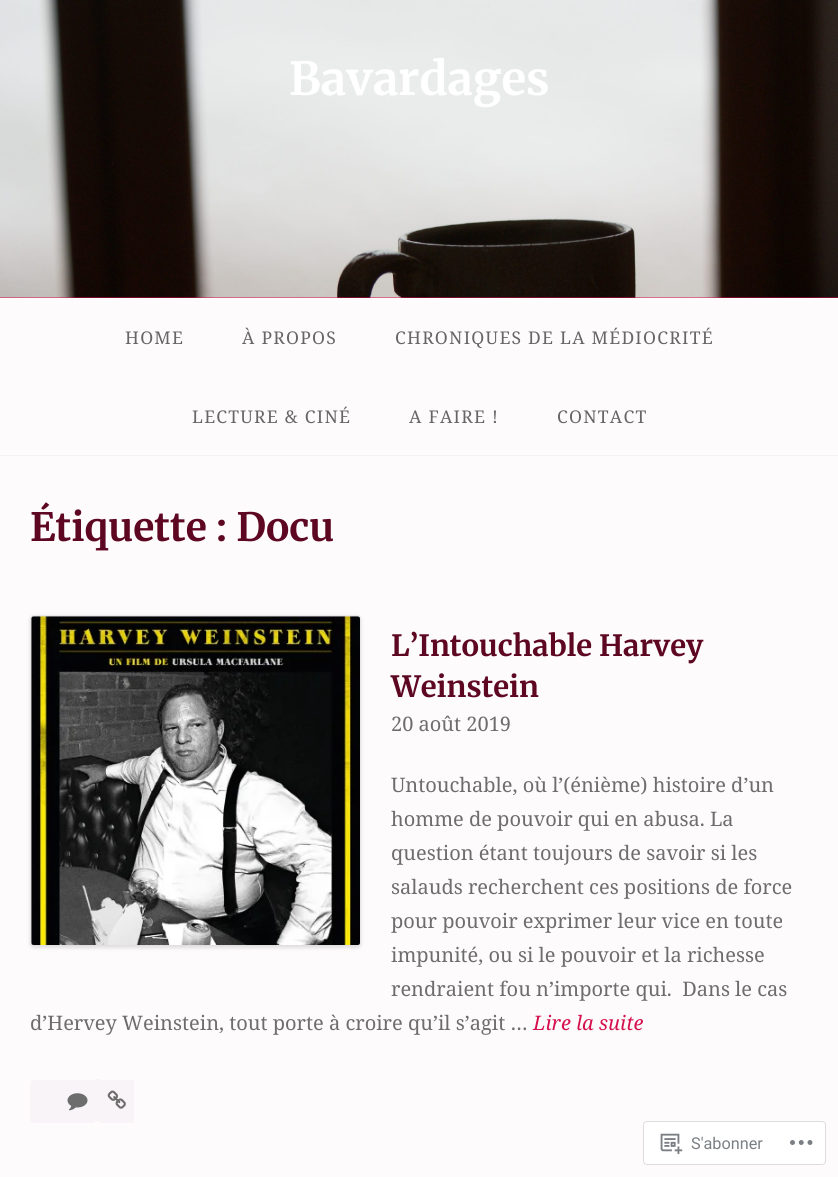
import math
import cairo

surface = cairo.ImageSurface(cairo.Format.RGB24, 838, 1177)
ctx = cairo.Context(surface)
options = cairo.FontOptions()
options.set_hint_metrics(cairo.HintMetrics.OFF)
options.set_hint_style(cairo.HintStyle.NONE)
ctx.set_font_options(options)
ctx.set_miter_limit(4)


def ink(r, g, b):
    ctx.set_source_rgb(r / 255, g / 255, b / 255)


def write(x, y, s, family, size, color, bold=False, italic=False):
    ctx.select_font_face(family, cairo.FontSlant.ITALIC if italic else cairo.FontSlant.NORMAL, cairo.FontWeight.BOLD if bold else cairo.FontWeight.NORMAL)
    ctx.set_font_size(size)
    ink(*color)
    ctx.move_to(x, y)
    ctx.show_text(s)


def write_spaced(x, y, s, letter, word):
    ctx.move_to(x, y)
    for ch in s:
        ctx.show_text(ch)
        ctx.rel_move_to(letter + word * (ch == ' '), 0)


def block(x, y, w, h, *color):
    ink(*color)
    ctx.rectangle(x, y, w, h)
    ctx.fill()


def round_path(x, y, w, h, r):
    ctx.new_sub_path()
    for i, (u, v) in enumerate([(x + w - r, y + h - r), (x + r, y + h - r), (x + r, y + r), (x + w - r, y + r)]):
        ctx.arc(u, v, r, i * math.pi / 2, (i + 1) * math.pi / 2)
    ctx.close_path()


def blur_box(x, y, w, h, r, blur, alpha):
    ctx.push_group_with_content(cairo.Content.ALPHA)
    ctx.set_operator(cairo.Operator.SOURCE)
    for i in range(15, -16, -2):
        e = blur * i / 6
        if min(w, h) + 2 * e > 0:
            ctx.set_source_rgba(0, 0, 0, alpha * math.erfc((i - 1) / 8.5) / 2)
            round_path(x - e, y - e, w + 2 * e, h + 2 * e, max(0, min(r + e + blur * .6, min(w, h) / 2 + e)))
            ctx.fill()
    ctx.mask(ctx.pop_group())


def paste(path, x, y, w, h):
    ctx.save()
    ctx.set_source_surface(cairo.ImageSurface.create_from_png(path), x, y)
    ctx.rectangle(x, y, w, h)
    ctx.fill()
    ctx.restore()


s1 = dict(family="Merriweather Light", size=45.5, color=(255, 255, 255))
s2 = dict(family="Merriweather Light", size=39, color=(94, 7, 34))
s3 = dict(family="Merriweather Light", size=29.25, color=(94, 7, 34))
s4 = dict(family="Noto Serif", size=20, color=(109, 109, 109))
s5 = dict(family="Noto Serif", size=20, color=(213, 16, 78), italic=True)
s6 = dict(family="Roboto", size=16.25, color=(123, 127, 132))

ink(253, 251, 252)
ctx.paint()
block(0, 297, 838, 1, 218, 16, 80)
paste("pic1.png", 0, 0, 838, 298)
write(289, 95, "Bavardages", **s1)
block(0, 455, 838, 1, 243, 242, 243)
ctx.select_font_face("Noto Serif")
ctx.set_font_size(17.5)
ink(102, 102, 102)
write_spaced(125, 344, "HOME", 1.25, 0)
write_spaced(242, 344, "À PROPOS", 1.25, 0)
write_spaced(395, 344, "CHRONIQUES DE LA MÉDIOCRITÉ", 1.25, 0)
write_spaced(192, 423, "LECTURE & CINÉ", 1.25, 0)
write_spaced(409, 423, "A FAIRE !", 1.25, 0)
write_spaced(557, 423, "CONTACT", 1.25, 0)
write(30, 541, "Étiquette : Docu", **s2)
ink(0, 0, 0)
blur_box(30, 616, 331, 332, 4, 2, 0.12)
round_path(30.5, 615.5, 330, 330, 3.5)
ctx.set_source_rgba(0.867, 0.867, 0.867, 0.3)
ctx.set_line_width(1)
ctx.stroke()
paste("pic2.png", 31, 616, 329, 329)
write(391, 656, "L’Intouchable Harvey", **s3)
write(391, 697, "Weinstein", **s3)
write(391, 731, "20 août 2019", **s4)
write(391, 792, "Untouchable, où l’(énième) histoire d’un", **s4)
write(391, 826, "homme de pouvoir qui en abusa. La", **s4)
write(391, 860, "question étant toujours de savoir si les", **s4)
write(391, 894, "salauds recherchent ces positions de force", **s4)
write(391, 928, "pour pouvoir exprimer leur vice en toute", **s4)
write(391, 962, "impunité, ou si le pouvoir et la richesse", **s4)
write(391, 996, "rendraient fou n’importe qui.  Dans le cas", **s4)
write(30, 1030, "d’Hervey Weinstein, tout porte à croire qu’il s’agit …", **s4)
write(533, 1030, "Lire la suite", **s5)
ink(249, 244, 247)
ctx.new_path()
ctx.move_to(34, 1080)
ctx.line_to(95, 1080)
ctx.line_to(95, 1123)
ctx.line_to(34, 1123)
ctx.curve_to(32, 1123, 30, 1121, 30, 1119)
ctx.line_to(30, 1084)
ctx.curve_to(30, 1082, 32, 1080, 34, 1080)
ctx.close_path()
ctx.fill()
block(95, 1079, 5, 42, 249, 244, 247)
block(100, 1080, 34, 43, 249, 244, 247)
paste("pic3.png", 67, 1093, 21, 18)
paste("pic4.png", 107, 1090, 19, 19)
ink(255, 255, 255)
round_path(643.5, 1121.5, 182, 43, 3.5)
ctx.fill_preserve()
ink(221, 221, 223)
ctx.stroke()
paste("pic5.png", 660, 1133, 23, 22)
write(691, 1149, "S'abonner", **s6)
paste("pic6.png", 790, 1140, 23, 5)
surface.write_to_png("screenshot.png")
